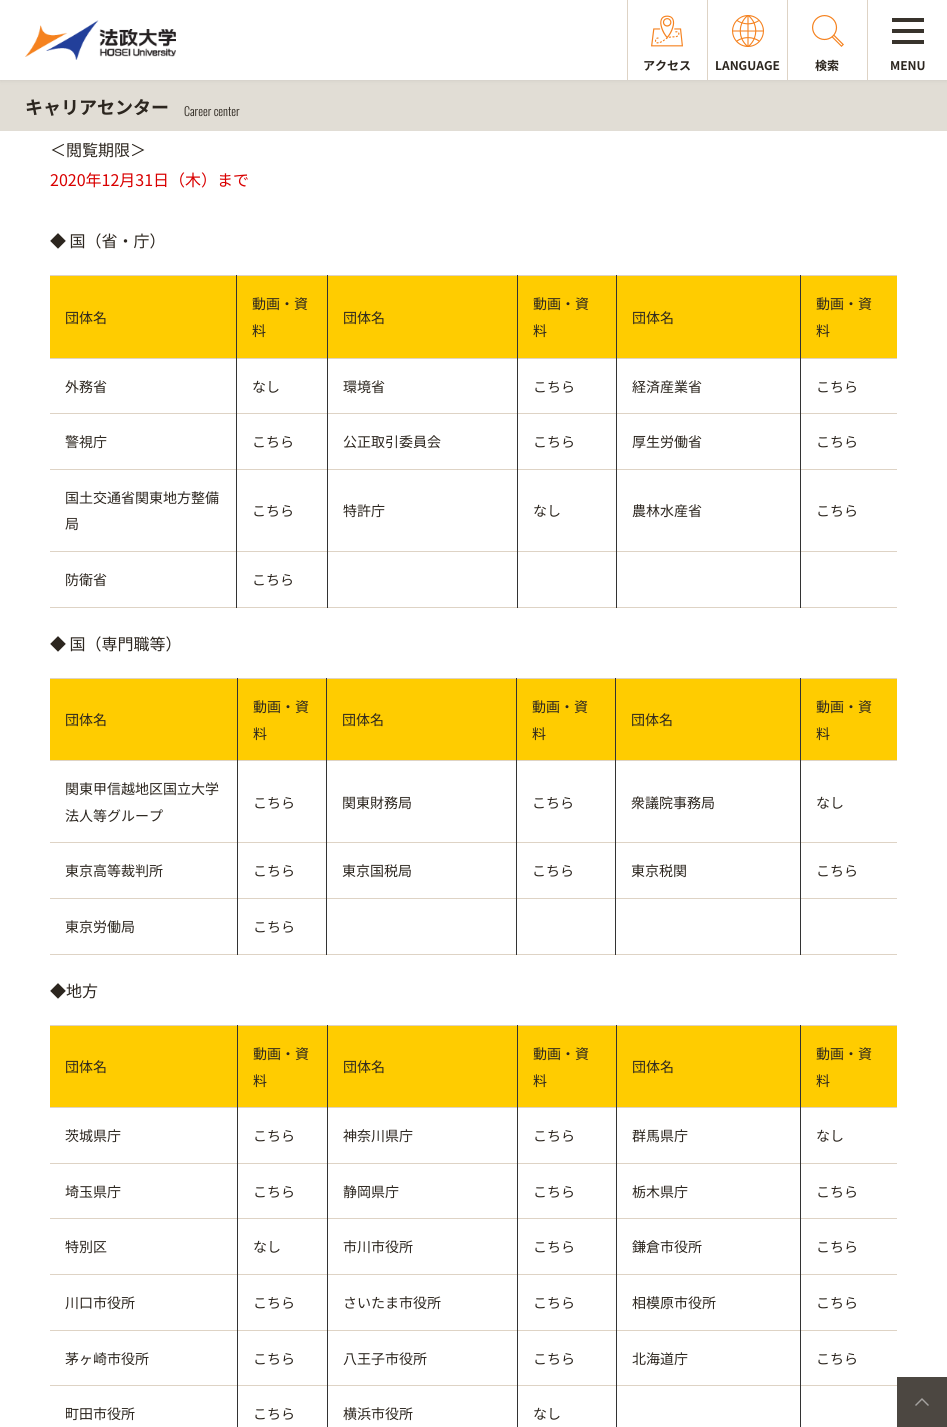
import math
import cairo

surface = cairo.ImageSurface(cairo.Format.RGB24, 947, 1427)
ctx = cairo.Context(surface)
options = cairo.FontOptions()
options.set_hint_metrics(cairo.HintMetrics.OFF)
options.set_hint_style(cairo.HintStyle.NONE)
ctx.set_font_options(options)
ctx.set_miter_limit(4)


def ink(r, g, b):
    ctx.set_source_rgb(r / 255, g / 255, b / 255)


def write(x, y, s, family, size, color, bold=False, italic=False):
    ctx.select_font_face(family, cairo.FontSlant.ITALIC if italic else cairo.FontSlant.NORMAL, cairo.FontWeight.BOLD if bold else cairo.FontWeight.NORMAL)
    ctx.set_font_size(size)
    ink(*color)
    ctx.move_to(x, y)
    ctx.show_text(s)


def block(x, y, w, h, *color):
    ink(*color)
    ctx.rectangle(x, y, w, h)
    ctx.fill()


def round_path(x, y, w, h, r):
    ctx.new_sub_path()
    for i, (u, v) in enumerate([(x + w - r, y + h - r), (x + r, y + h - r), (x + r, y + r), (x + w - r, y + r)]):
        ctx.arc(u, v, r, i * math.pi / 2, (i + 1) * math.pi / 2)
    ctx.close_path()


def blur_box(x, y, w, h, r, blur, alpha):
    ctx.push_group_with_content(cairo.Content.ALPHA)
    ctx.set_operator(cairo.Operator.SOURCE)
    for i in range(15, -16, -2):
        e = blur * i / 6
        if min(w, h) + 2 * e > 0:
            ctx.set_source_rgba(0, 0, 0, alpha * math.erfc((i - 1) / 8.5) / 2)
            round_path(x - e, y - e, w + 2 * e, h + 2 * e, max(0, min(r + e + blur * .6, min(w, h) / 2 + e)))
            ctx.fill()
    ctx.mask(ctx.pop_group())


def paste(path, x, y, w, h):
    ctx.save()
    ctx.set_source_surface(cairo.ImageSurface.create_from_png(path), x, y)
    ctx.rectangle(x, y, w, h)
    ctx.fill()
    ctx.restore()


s1 = dict(family="Noto Sans JP", size=12, color=(44, 38, 31), bold=True)
s2 = dict(family="Noto Sans JP", size=18, color=(44, 38, 31), bold=True)
s3 = dict(family="Oswald Light", size=12, color=(44, 38, 31))
s4 = dict(family="Noto Sans JP", size=16, color=(44, 38, 31))
s5 = dict(family="Noto Sans JP", size=16, color=(217, 0, 0))
s6 = dict(family="Noto Sans JP", size=14, color=(44, 38, 31))

ink(255, 255, 255)
ctx.paint()
block(0, 80, 947, 51, 225, 221, 213)
ink(0, 0, 0)
blur_box(0, 0, 947, 80, 0, 2.5, 0.1)
block(0, 0, 947, 80, 255, 255, 255)
paste("pic1.png", 25, 20, 151, 40)
block(627, 0, 1, 80, 222, 211, 197)
paste("pic2.png", 651, 15, 32, 32)
write(643, 70, "アクセス", **s1)
block(707, 0, 1, 80, 222, 211, 197)
paste("pic3.png", 732, 15, 32, 32)
write(715, 70, "LANGUAGE", **s1)
block(787, 0, 1, 80, 222, 211, 197)
paste("pic4.png", 812, 15, 32, 32)
write(815, 70, "検索", **s1)
block(867, 0, 1, 80, 222, 211, 197)
block(892, 18, 32, 4, 56, 51, 44)
block(892, 29, 32, 4, 56, 51, 44)
block(892, 40, 32, 4, 56, 51, 44)
write(890, 70, "MENU", **s1)
write(25, 114, "キャリアセンター", **s2)
write(184, 116, "Career center", **s3)
write(50, 156, "＜閲覧期限＞", **s4)
write(50, 186, "2020年12月31日（木）まで", **s5)
write(50, 247, "◆ 国（省・庁）", **s4)
block(50, 275, 847, 1, 222, 211, 197)
block(50, 276, 186, 82, 255, 204, 0)
write(65, 323, "団体名", **s6)
block(237, 276, 90, 82, 255, 204, 0)
write(252, 309, "動画・資", **s6)
write(252, 336, "料", **s6)
block(328, 276, 189, 82, 255, 204, 0)
write(343, 323, "団体名", **s6)
block(518, 276, 98, 82, 255, 204, 0)
write(533, 309, "動画・資", **s6)
write(533, 336, "料", **s6)
block(617, 276, 183, 82, 255, 204, 0)
write(632, 323, "団体名", **s6)
block(801, 276, 96, 82, 255, 204, 0)
write(816, 309, "動画・資", **s6)
write(816, 336, "料", **s6)
block(50, 358, 847, 1, 222, 211, 197)
write(65, 392, "外務省", **s6)
write(252, 392, "なし", **s6)
write(343, 392, "環境省", **s6)
write(533, 392, "こちら", **s6)
write(632, 392, "経済産業省", **s6)
write(816, 392, "こちら", **s6)
block(50, 413, 847, 1, 222, 211, 197)
write(65, 447, "警視庁", **s6)
write(252, 447, "こちら", **s6)
write(343, 447, "公正取引委員会", **s6)
write(533, 447, "こちら", **s6)
write(632, 447, "厚生労働省", **s6)
write(816, 447, "こちら", **s6)
block(50, 469, 847, 1, 222, 211, 197)
write(65, 503, "国土交通省関東地方整備", **s6)
write(65, 529, "局", **s6)
write(252, 516, "こちら", **s6)
write(343, 516, "特許庁", **s6)
write(533, 516, "なし", **s6)
write(632, 516, "農林水産省", **s6)
write(816, 516, "こちら", **s6)
block(50, 551, 847, 1, 222, 211, 197)
block(50, 607, 847, 1, 222, 211, 197)
block(236, 275, 1, 333, 51, 51, 51)
write(65, 585, "防衛省", **s6)
block(327, 275, 1, 333, 51, 51, 51)
write(252, 585, "こちら", **s6)
block(517, 275, 1, 333, 51, 51, 51)
block(616, 275, 1, 333, 51, 51, 51)
block(800, 275, 1, 333, 51, 51, 51)
write(50, 650, "◆ 国（専門職等）", **s4)
block(50, 678, 847, 1, 222, 211, 197)
block(50, 679, 187, 81, 255, 204, 0)
write(65, 725, "団体名", **s6)
block(238, 679, 88, 81, 255, 204, 0)
write(253, 712, "動画・資", **s6)
write(253, 739, "料", **s6)
block(327, 679, 189, 81, 255, 204, 0)
write(342, 725, "団体名", **s6)
block(517, 679, 98, 81, 255, 204, 0)
write(532, 712, "動画・資", **s6)
write(532, 739, "料", **s6)
block(616, 679, 184, 81, 255, 204, 0)
write(631, 725, "団体名", **s6)
block(801, 679, 96, 81, 255, 204, 0)
write(816, 712, "動画・資", **s6)
write(816, 739, "料", **s6)
block(50, 760, 847, 1, 222, 211, 197)
write(65, 794, "関東甲信越地区国立大学", **s6)
write(65, 821, "法人等グループ", **s6)
write(253, 808, "こちら", **s6)
write(342, 808, "関東財務局", **s6)
write(532, 808, "こちら", **s6)
write(631, 808, "衆議院事務局", **s6)
write(816, 808, "なし", **s6)
block(50, 842, 847, 1, 222, 211, 197)
write(65, 876, "東京高等裁判所", **s6)
write(253, 876, "こちら", **s6)
write(342, 876, "東京国税局", **s6)
write(532, 876, "こちら", **s6)
write(631, 876, "東京税関", **s6)
write(816, 876, "こちら", **s6)
block(50, 898, 847, 1, 222, 211, 197)
block(50, 954, 847, 1, 222, 211, 197)
block(237, 678, 1, 277, 51, 51, 51)
write(65, 932, "東京労働局", **s6)
block(326, 678, 1, 277, 51, 51, 51)
write(253, 932, "こちら", **s6)
block(516, 678, 1, 277, 51, 51, 51)
block(615, 678, 1, 277, 51, 51, 51)
block(800, 678, 1, 277, 51, 51, 51)
write(50, 997, "◆地方", **s4)
block(50, 1025, 847, 1, 222, 211, 197)
block(50, 1026, 187, 81, 255, 204, 0)
write(65, 1072, "団体名", **s6)
block(238, 1026, 89, 81, 255, 204, 0)
write(253, 1059, "動画・資", **s6)
write(253, 1086, "料", **s6)
block(328, 1026, 189, 81, 255, 204, 0)
write(343, 1072, "団体名", **s6)
block(518, 1026, 98, 81, 255, 204, 0)
write(533, 1059, "動画・資", **s6)
write(533, 1086, "料", **s6)
block(617, 1026, 183, 81, 255, 204, 0)
write(632, 1072, "団体名", **s6)
block(801, 1026, 96, 81, 255, 204, 0)
write(816, 1059, "動画・資", **s6)
write(816, 1086, "料", **s6)
block(50, 1107, 847, 1, 222, 211, 197)
write(65, 1141, "茨城県庁", **s6)
write(253, 1141, "こちら", **s6)
write(343, 1141, "神奈川県庁", **s6)
write(533, 1141, "こちら", **s6)
write(632, 1141, "群馬県庁", **s6)
write(816, 1141, "なし", **s6)
block(50, 1163, 847, 1, 222, 211, 197)
write(65, 1197, "埼玉県庁", **s6)
write(253, 1197, "こちら", **s6)
write(343, 1197, "静岡県庁", **s6)
write(533, 1197, "こちら", **s6)
write(632, 1197, "栃木県庁", **s6)
write(816, 1197, "こちら", **s6)
block(50, 1218, 847, 1, 222, 211, 197)
write(65, 1252, "特別区", **s6)
write(253, 1252, "なし", **s6)
write(343, 1252, "市川市役所", **s6)
write(533, 1252, "こちら", **s6)
write(632, 1252, "鎌倉市役所", **s6)
write(816, 1252, "こちら", **s6)
block(50, 1274, 847, 1, 222, 211, 197)
write(65, 1308, "川口市役所", **s6)
write(253, 1308, "こちら", **s6)
write(343, 1308, "さいたま市役所", **s6)
write(533, 1308, "こちら", **s6)
write(632, 1308, "相模原市役所", **s6)
write(816, 1308, "こちら", **s6)
block(50, 1330, 847, 1, 222, 211, 197)
write(65, 1364, "茅ヶ崎市役所", **s6)
write(253, 1364, "こちら", **s6)
write(343, 1364, "八王子市役所", **s6)
write(533, 1364, "こちら", **s6)
write(632, 1364, "北海道庁", **s6)
write(816, 1364, "こちら", **s6)
block(50, 1385, 847, 1, 222, 211, 197)
block(237, 1025, 1, 402, 51, 51, 51)
write(65, 1419, "町田市役所", **s6)
block(327, 1025, 1, 402, 51, 51, 51)
write(253, 1419, "こちら", **s6)
block(517, 1025, 1, 402, 51, 51, 51)
write(343, 1419, "横浜市役所", **s6)
block(616, 1025, 1, 402, 51, 51, 51)
write(533, 1419, "なし", **s6)
block(800, 1025, 1, 402, 51, 51, 51)
block(897, 1377, 50, 50, 76, 71, 65)
paste("pic5.png", 915, 1398, 14, 8)
surface.write_to_png("screenshot.png")
